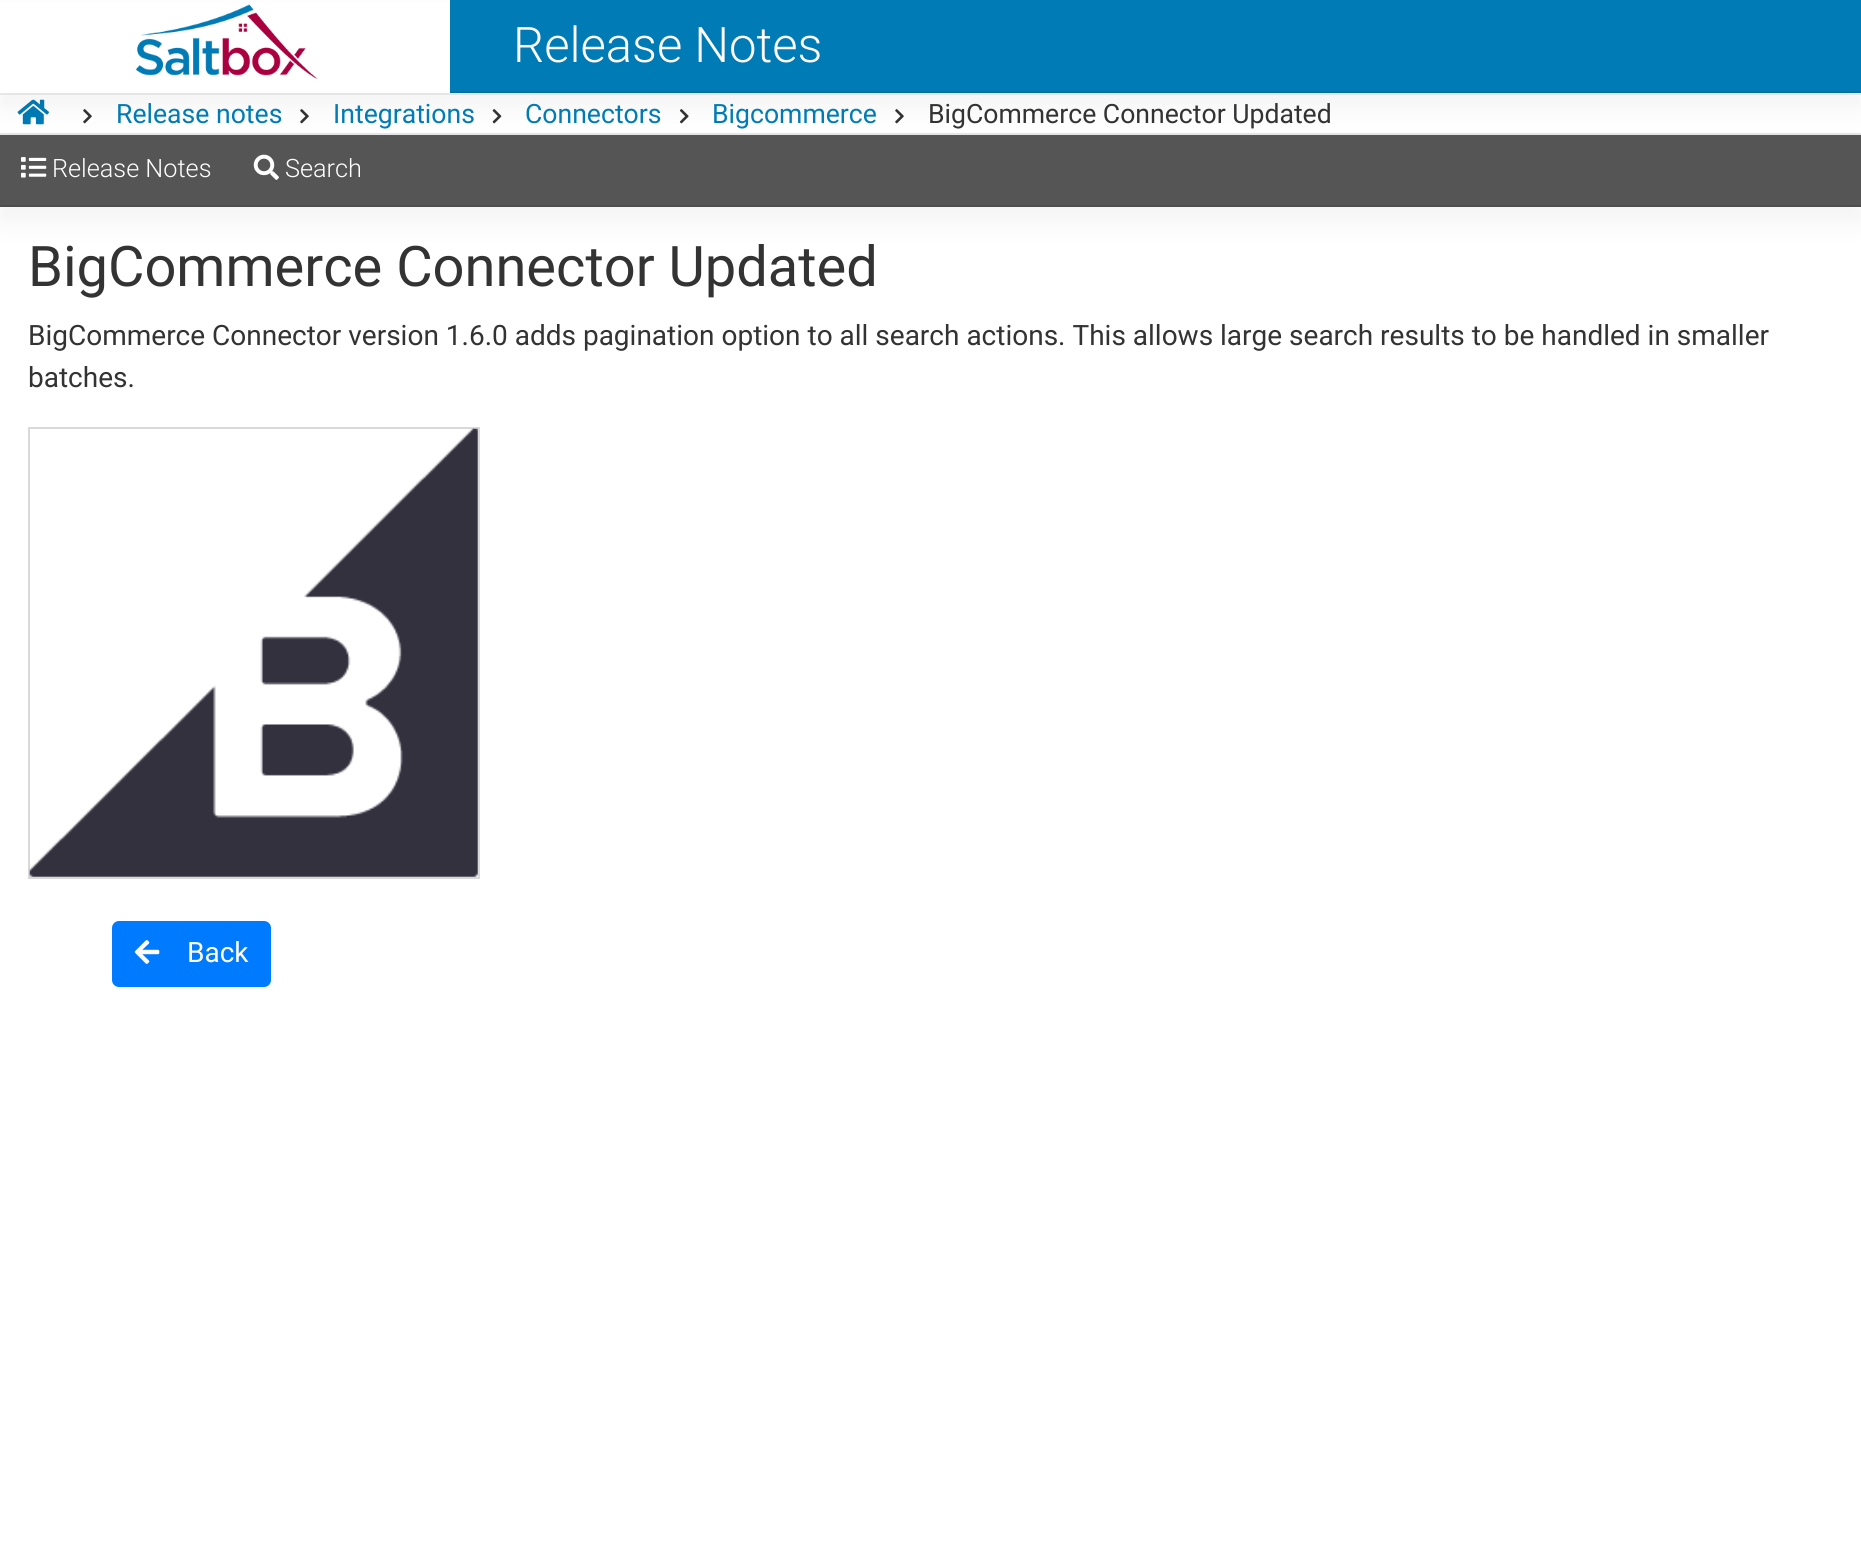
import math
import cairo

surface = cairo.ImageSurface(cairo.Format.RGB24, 1861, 1552)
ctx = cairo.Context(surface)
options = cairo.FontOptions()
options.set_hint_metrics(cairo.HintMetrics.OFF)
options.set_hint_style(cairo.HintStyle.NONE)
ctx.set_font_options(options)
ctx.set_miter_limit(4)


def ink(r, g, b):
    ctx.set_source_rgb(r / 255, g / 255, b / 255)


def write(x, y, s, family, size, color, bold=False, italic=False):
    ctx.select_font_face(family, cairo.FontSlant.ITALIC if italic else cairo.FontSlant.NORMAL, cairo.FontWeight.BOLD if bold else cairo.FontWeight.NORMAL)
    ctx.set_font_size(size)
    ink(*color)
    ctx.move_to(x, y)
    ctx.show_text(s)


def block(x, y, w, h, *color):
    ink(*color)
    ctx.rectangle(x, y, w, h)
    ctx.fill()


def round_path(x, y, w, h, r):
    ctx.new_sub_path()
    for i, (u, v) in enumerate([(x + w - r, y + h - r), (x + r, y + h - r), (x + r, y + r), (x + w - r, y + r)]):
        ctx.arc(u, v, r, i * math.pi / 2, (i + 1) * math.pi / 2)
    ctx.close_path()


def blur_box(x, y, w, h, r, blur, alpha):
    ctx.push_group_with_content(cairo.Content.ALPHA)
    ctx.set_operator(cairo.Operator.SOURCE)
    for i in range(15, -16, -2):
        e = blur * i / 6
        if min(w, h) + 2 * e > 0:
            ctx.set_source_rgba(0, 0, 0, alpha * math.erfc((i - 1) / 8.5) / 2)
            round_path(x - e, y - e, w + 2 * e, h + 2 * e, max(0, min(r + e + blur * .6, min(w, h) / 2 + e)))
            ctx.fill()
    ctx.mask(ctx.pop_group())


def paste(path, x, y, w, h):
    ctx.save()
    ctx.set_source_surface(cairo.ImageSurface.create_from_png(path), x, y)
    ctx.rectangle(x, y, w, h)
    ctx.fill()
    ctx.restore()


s1 = dict(family="Roboto Light", size=49, color=(255, 255, 255))
s2 = dict(family="Roboto", size=26.6, color=(0, 123, 181))
s3 = dict(family="Roboto", size=26.6, color=(51, 51, 51))
s4 = dict(family="Roboto Light", size=25.25, color=(255, 255, 255))
s5 = dict(family="Roboto", size=56, color=(51, 51, 51))
s6 = dict(family="Roboto", size=28, color=(51, 51, 51))
s7 = dict(family="Roboto", size=28, color=(255, 255, 255))

ink(255, 255, 255)
ctx.paint()
block(0, 133, 1861, 2, 230, 230, 230)
block(0, 93, 1861, 2, 238, 238, 238)
ink(0, 0, 0)
blur_box(0, 149, 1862, 72, 0, 14, 0.05)
paste("pic2.png", 17, 99, 32, 26)
paste("pic3.png", 83, 109, 9, 15)
paste("pic3.png", 300, 109, 9, 15)
paste("pic4.png", 492, 109, 10, 15)
paste("pic5.png", 679, 109, 10, 15)
paste("pic3.png", 895, 109, 9, 15)
block(0, 135, 1861, 70, 85, 85, 85)
ink(0, 0, 0)
blur_box(0, 14, 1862, 93, 0, 14, 0.05)
block(450, 0, 1411, 91, 0, 123, 181)
block(450, 91, 1411, 2, 0, 111, 163)
block(0, 2, 450, 91, 255, 255, 255)
paste("pic1.png", 135, 4, 182, 75)
write(513, 62, "Release Notes", **s1)
write(116, 123, "Release notes", **s2)
write(333, 123, "Integrations", **s2)
write(525, 123, "Connectors", **s2)
write(712, 123, "Bigcommerce", **s2)
write(928, 123, "BigCommerce Connector Updated", **s3)
block(0, 205, 1861, 2, 77, 77, 77)
paste("pic6.png", 21, 157, 26, 21)
write(52, 177, "Release Notes", **s4)
paste("pic7.png", 253, 154, 26, 26)
write(285, 177, "Search", **s4)
write(28, 286, "BigCommerce Connector Updated", **s5)
write(28, 345, "BigCommerce Connector version 1.6.0 adds pagination option to all search actions. This allows large search results to be handled in smaller", **s6)
write(28, 387, "batches.", **s6)
ctx.rectangle(29, 428, 450, 450)
ink(217, 217, 217)
ctx.stroke()
paste("pic8.png", 29, 428, 449, 449)
ink(0, 123, 255)
round_path(113, 922, 157, 64, 6)
ctx.fill_preserve()
ctx.stroke()
paste("pic9.png", 134, 940, 26, 24)
write(187, 962, "Back", **s7)
surface.write_to_png("screenshot.png")
